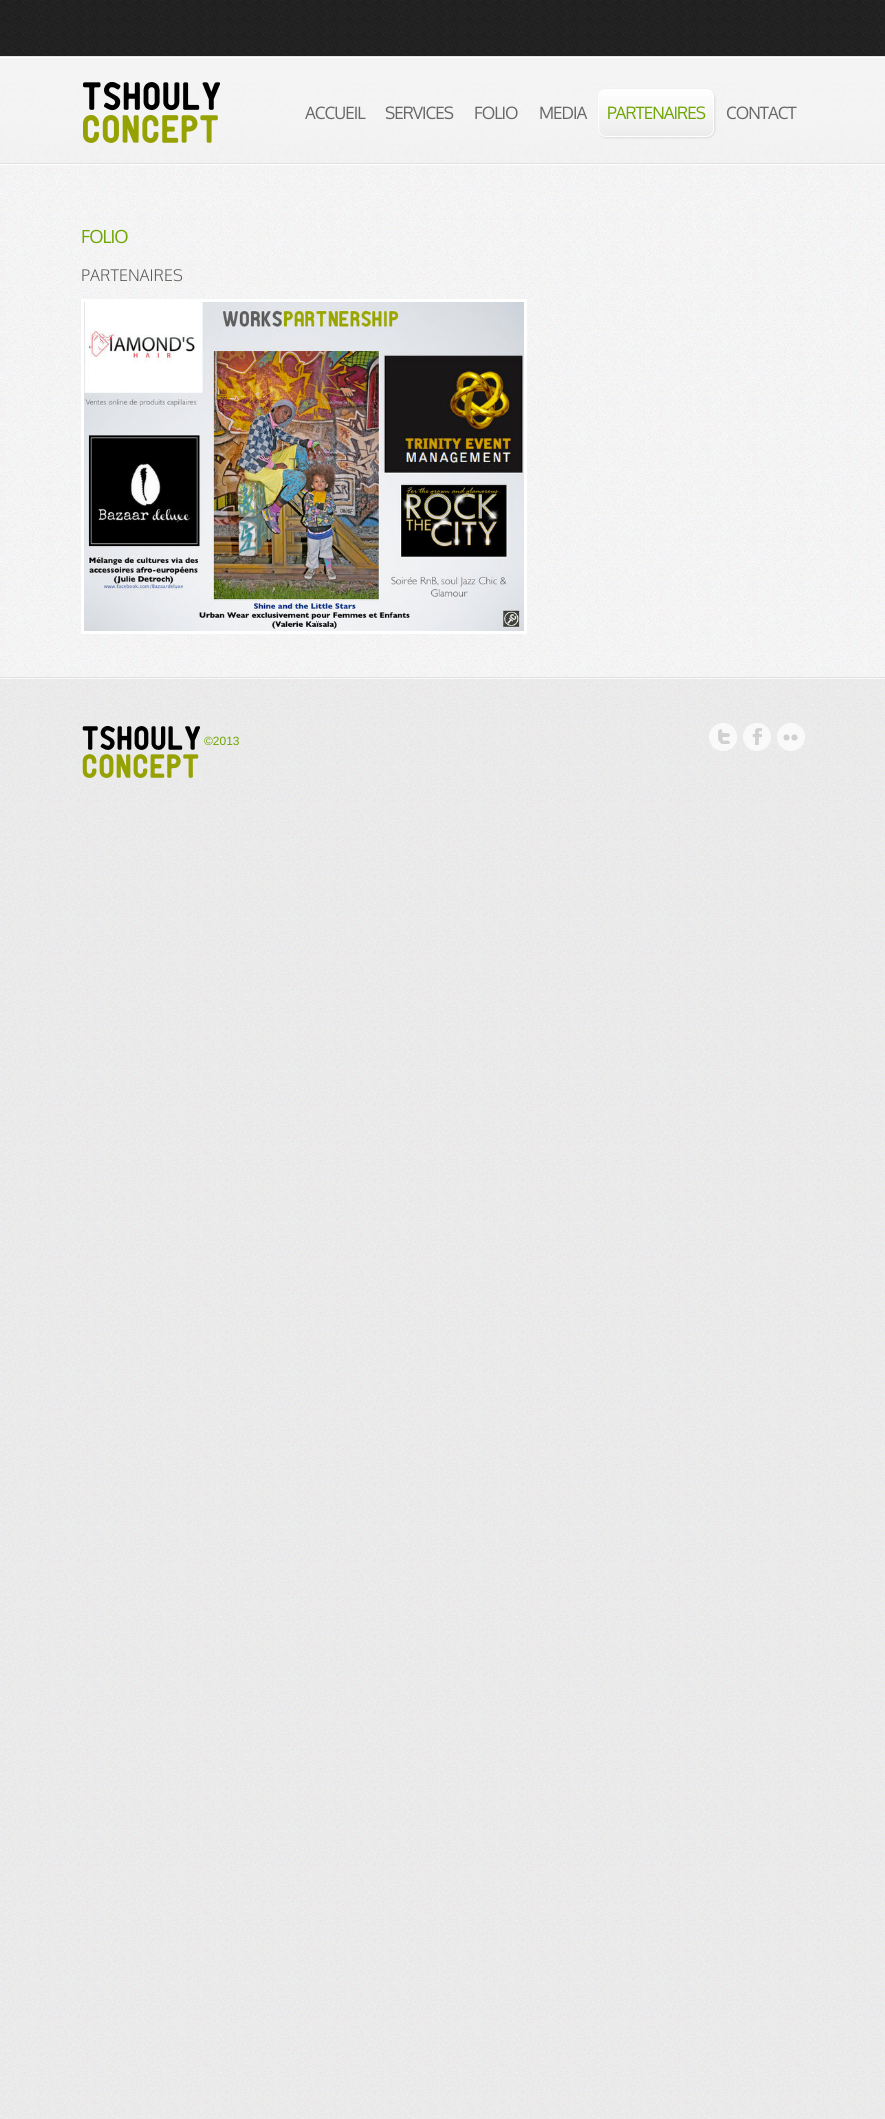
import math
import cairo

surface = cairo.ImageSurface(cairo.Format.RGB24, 885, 2119)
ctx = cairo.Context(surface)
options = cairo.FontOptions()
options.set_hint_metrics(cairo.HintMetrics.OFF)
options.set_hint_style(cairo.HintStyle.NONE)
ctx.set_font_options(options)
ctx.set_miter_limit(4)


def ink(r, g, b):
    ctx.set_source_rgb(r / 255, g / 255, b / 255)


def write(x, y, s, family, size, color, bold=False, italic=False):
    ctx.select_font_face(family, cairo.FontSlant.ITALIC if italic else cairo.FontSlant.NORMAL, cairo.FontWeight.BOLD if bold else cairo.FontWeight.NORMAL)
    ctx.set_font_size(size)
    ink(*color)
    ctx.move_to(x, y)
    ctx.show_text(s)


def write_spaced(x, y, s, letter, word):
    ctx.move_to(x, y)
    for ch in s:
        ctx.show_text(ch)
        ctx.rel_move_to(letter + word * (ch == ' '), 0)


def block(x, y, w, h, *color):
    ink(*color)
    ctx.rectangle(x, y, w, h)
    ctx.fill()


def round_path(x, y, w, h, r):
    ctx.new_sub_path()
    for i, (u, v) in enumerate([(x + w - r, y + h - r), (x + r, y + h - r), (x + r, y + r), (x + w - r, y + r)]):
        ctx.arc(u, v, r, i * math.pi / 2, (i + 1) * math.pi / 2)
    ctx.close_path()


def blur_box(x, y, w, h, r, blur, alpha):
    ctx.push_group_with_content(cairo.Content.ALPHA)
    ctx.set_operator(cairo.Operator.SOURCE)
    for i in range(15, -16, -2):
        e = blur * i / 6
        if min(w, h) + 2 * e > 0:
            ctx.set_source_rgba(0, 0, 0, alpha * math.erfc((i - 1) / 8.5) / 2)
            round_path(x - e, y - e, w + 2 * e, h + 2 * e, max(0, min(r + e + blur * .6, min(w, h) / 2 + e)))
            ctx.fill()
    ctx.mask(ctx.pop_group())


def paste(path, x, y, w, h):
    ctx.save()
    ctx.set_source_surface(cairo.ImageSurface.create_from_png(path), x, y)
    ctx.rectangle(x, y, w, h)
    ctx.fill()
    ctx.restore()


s1 = dict(family="Oxygen Light", size=16, color=(86, 86, 86))
s2 = dict(family="Liberation Sans", size=12, color=(111, 166, 3))

ink(255, 255, 255)
ctx.paint()
paste("pic1.png", 0, 679, 885, 1440)
block(0, 163, 885, 1, 224, 224, 224)
paste("pic2.png", 0, 0, 885, 56)
block(0, 56, 885, 1, 224, 224, 224)
paste("pic3.png", 0, 58, 885, 105)
paste("pic4.png", 83, 82, 137, 61)
ctx.select_font_face("Oxygen")
ctx.set_font_size(17)
ink(104, 104, 104)
write_spaced(305, 119, "ACCUEIL", -1, 0)
write_spaced(385, 119, "SERVICES", -1, 0)
write_spaced(474, 119, "FOLIO", -1, 0)
write_spaced(539, 119, "MEDIA", -1, 0)
ink(0, 0, 0)
blur_box(599, 90, 116, 48, 8, 1, 0.1)
ctx.save()
round_path(598, 89, 116, 48, 8)
ctx.clip()
gradient = cairo.LinearGradient(656, 90, 656, 136)
gradient.add_color_stop_rgba(0, 1, 1, 1, 1)
gradient.add_color_stop_rgba(1, 0.925, 0.925, 0.925, 1)
ctx.set_source(gradient)
ctx.rectangle(598, 90, 116, 46)
ctx.fill()
ctx.restore()
round_path(598.5, 89.5, 115, 47, 7.5)
ink(255, 255, 255)
ctx.set_line_width(1)
ctx.stroke()
ink(111, 166, 3)
write_spaced(607, 119, "PARTENAIRES", -1, 0)
ink(104, 104, 104)
write_spaced(726, 119, "CONTACT", -1, 0)
paste("pic5.png", 0, 165, 885, 512)
block(0, 677, 885, 1, 224, 224, 224)
ctx.set_font_size(18)
ink(111, 166, 3)
write_spaced(81, 243, "FOLIO", -1, 0)
write(81, 281, "PARTENAIRES", **s1)
block(81, 299, 446, 335, 255, 255, 255)
paste("pic6.png", 84, 302, 440, 329)
block(0, 678, 885, 1, 249, 249, 249)
paste("pic7.png", 82, 726, 118, 52)
write(204, 745, "©2013", **s2)
paste("pic8.png", 709, 723, 28, 28)
paste("pic9.png", 743, 723, 28, 28)
paste("pic10.png", 777, 723, 28, 28)
surface.write_to_png("screenshot.png")
